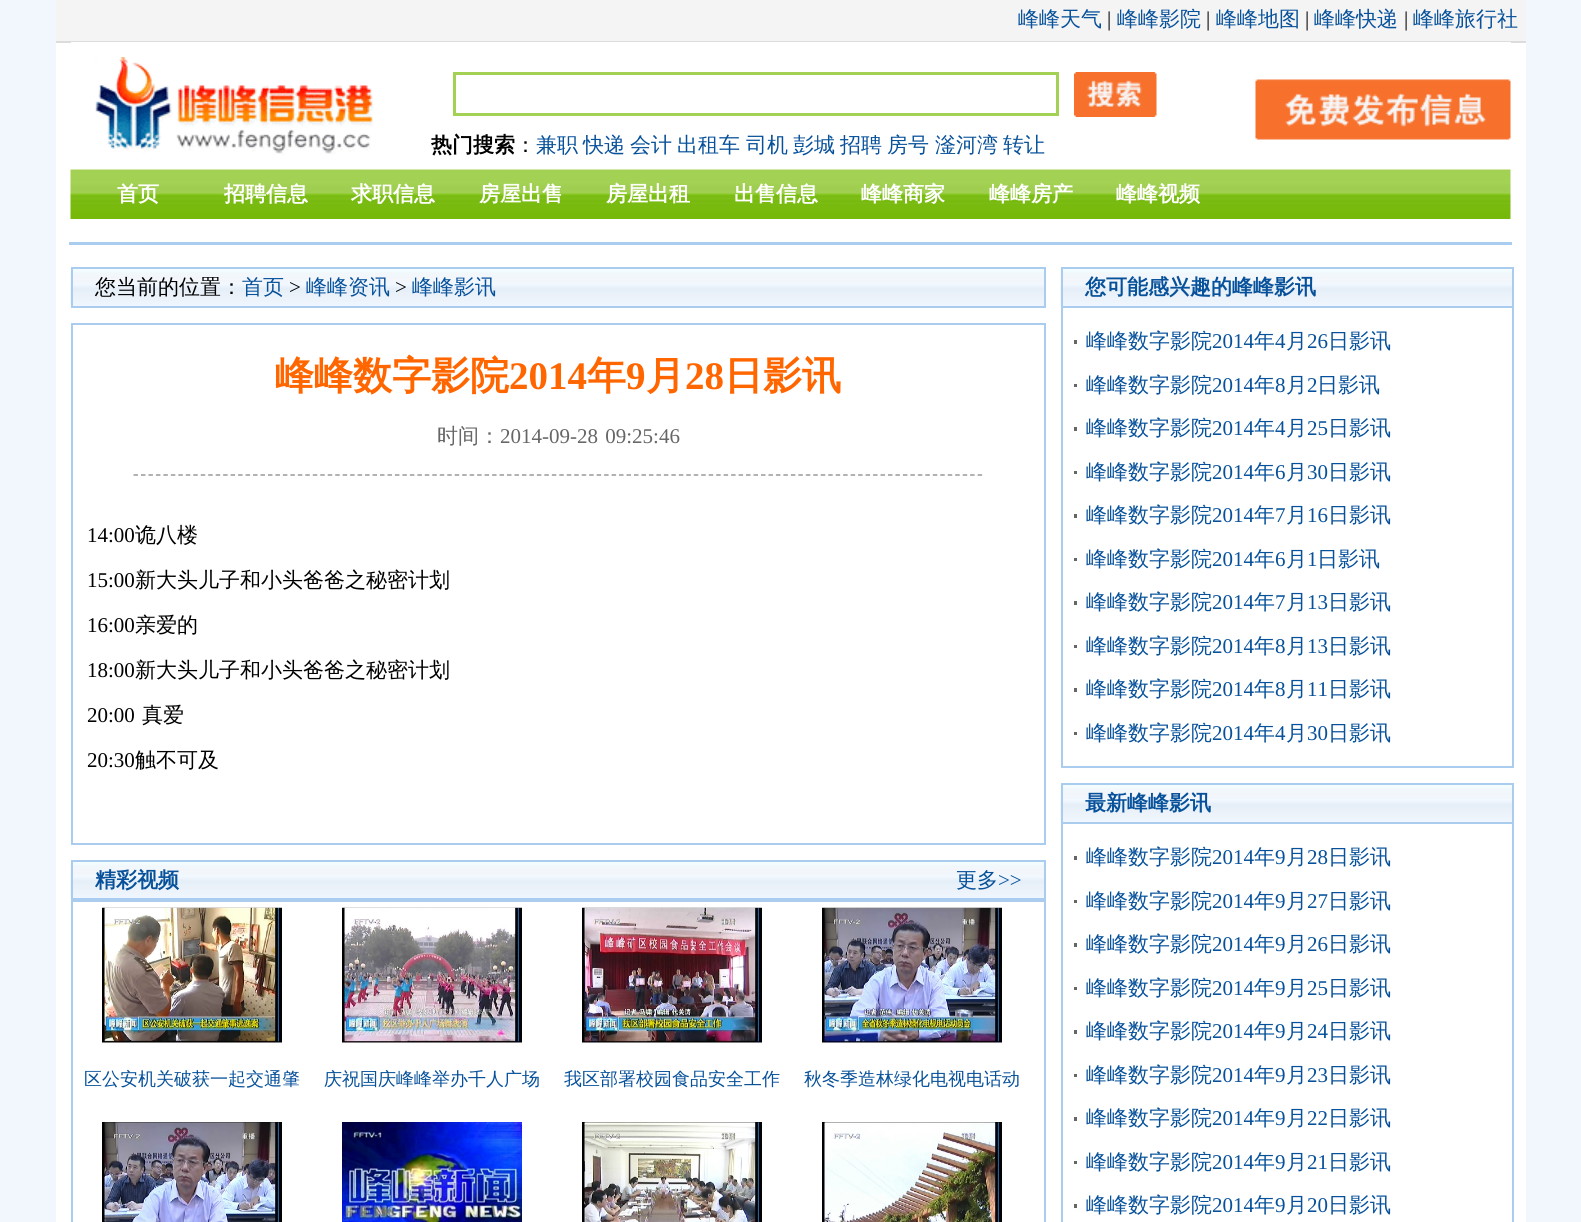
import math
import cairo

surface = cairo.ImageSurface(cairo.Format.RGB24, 1581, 1222)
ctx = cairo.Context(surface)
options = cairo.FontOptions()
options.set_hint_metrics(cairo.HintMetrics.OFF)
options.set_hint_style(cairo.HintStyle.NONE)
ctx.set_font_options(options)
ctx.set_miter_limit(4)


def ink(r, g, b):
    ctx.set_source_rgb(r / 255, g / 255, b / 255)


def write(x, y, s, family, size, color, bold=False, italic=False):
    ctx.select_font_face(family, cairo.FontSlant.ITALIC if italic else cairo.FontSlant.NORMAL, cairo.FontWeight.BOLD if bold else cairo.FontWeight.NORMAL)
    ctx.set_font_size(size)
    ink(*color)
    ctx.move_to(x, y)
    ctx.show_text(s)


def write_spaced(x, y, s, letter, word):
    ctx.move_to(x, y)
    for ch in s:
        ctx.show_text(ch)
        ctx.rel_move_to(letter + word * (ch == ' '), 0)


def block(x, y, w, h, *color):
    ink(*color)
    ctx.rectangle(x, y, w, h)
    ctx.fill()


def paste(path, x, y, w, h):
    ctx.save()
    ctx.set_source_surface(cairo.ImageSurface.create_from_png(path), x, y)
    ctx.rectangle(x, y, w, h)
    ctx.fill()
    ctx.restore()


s1 = dict(family="WenQuanYi Zen Hei Medium", size=21, color=(7, 81, 154))
s2 = dict(family="Liberation Serif", size=21, color=(0, 0, 0))
s3 = dict(family="WenQuanYi Zen Hei", size=21, color=(0, 0, 0), bold=True)
s4 = dict(family="WenQuanYi Zen Hei Medium", size=21, color=(0, 0, 0))
s5 = dict(family="WenQuanYi Zen Hei", size=21, color=(255, 255, 255), bold=True)
s6 = dict(family="WenQuanYi Zen Hei", size=39, color=(255, 102, 0), bold=True)
s7 = dict(family="Liberation Serif", size=39, color=(255, 102, 0), bold=True)
s8 = dict(family="WenQuanYi Zen Hei Medium", size=21, color=(102, 102, 102))
s9 = dict(family="WenQuanYi Zen Hei", size=21, color=(7, 81, 154), bold=True)
s10 = dict(family="Liberation Serif", size=21, color=(7, 81, 154))
s11 = dict(family="WenQuanYi Zen Hei Medium", size=18, color=(7, 81, 154))

ink(241, 247, 252)
ctx.paint()
block(56, 43, 1470, 1179, 255, 255, 255)
block(56, 0, 1470, 41, 244, 244, 244)
block(56, 41, 1470, 2, 220, 220, 220)
write(1018, 26, "峰峰天气", **s1)
write(1107, 26, "|", **s2)
write(1117, 26, "峰峰影院", **s1)
write(1206, 26, "|", **s2)
write(1216, 26, "峰峰地图", **s1)
write(1305, 26, "|", **s2)
write(1314, 26, "峰峰快递", **s1)
write(1404, 26, "|", **s2)
write(1413, 26, "峰峰旅行社", **s1)
block(71, 42, 1440, 1, 255, 255, 255)
paste("pic1.png", 95, 57, 279, 98)
paste("pic2.png", 1255, 79, 256, 61)
ctx.rectangle(454.5, 73.5, 603, 41)
ink(163, 209, 84)
ctx.set_line_width(3)
ctx.stroke()
paste("pic3.png", 1074, 72, 83, 45)
write(431, 152, "热门搜索", **s3)
write(515, 152, "：", **s4)
write(536, 152, "兼职", **s1)
write(583, 152, "快递", **s1)
write(630, 152, "会计", **s1)
write(677, 152, "出租车", **s1)
write(746, 152, "司机", **s1)
write(793, 152, "彭城", **s1)
write(840, 152, "招聘", **s1)
write(887, 152, "房号", **s1)
write(935, 152, "滏河湾", **s1)
write(1003, 152, "转让", **s1)
paste("pic4.png", 70, 169, 1441, 50)
write(117, 201, "首页", **s5)
write(224, 201, "招聘信息", **s5)
write(351, 201, "求职信息", **s5)
write(479, 201, "房屋出售", **s5)
write(606, 201, "房屋出租", **s5)
write(734, 201, "出售信息", **s5)
write(861, 201, "峰峰商家", **s5)
write(989, 201, "峰峰房产", **s5)
write(1116, 201, "峰峰视频", **s5)
block(69, 242, 1443, 3, 170, 204, 238)
paste("pic5.png", 70, 268, 974, 38)
ctx.rectangle(72, 268, 973, 39)
ctx.set_line_width(2)
ctx.stroke()
write(95, 294, "您当前的位置：", **s4)
write(242, 294, "首页", **s1)
write(289, 294, ">", **s2)
write(306, 294, "峰峰资讯", **s1)
write(395, 294, ">", **s2)
write(412, 294, "峰峰影讯", **s1)
ctx.rectangle(72, 324, 973, 520)
ink(170, 204, 238)
ctx.stroke()
write(275, 389, "峰峰数字影院", **s6)
write(509, 389, "2014", **s7)
write(587, 389, "年", **s6)
write(626, 389, "9", **s7)
write(646, 389, "月", **s6)
write(685, 389, "28", **s7)
write(724, 389, "日影讯", **s6)
ctx.new_path()
ctx.move_to(133.5, 475)
ctx.line_to(982.5, 475)
ink(153, 153, 153)
ctx.set_line_width(1.5)
ctx.set_dash([4.5, 2.97])
ctx.stroke()
write(437, 443, "时间：", **s8)
ctx.select_font_face("Liberation Serif")
write_spaced(500, 443, "2014-09-28 09:25:46", 0, 2)
write(87, 542, "14:00", **s2)
write(135, 542, "诡八楼", **s4)
write(87, 587, "15:00", **s2)
write(135, 587, "新大头儿子和小头爸爸之秘密计划", **s4)
write(87, 632, "16:00", **s2)
write(135, 632, "亲爱的", **s4)
write(87, 677, "18:00", **s2)
write(135, 677, "新大头儿子和小头爸爸之秘密计划", **s4)
write(87, 722, "20:00", **s2)
write(142, 722, "真爱", **s4)
write(87, 767, "20:30", **s2)
write(135, 767, "触不可及", **s4)
paste("pic6.png", 70, 861, 974, 38)
ctx.rectangle(72, 861, 973, 38)
ink(170, 204, 238)
ctx.set_line_width(2)
ctx.set_dash([])
ctx.stroke()
write(95, 887, "精彩视频", **s9)
write(956, 887, "更多", **s1)
write(998, 887, ">>", **s10)
ctx.rectangle(72, 901, 973, 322)
ink(170, 204, 238)
ctx.stroke()
paste("pic7.png", 102, 907, 180, 136)
write(84, 1085, "区公安机关破获一起交通肇", **s11)
paste("pic8.png", 342, 907, 180, 136)
write(324, 1085, "庆祝国庆峰峰举办千人广场", **s11)
paste("pic9.png", 582, 907, 180, 136)
write(564, 1085, "我区部署校园食品安全工作", **s11)
paste("pic10.png", 822, 907, 180, 136)
write(804, 1085, "秋冬季造林绿化电视电话动", **s11)
paste("pic11.png", 102, 1122, 180, 100)
paste("pic12.png", 342, 1122, 180, 100)
paste("pic13.png", 582, 1122, 180, 100)
paste("pic14.png", 822, 1122, 180, 100)
paste("pic15.png", 1060, 268, 452, 38)
block(1061, 267, 453, 2, 170, 204, 238)
block(1512, 267, 2, 39, 170, 204, 238)
block(1061, 267, 2, 39, 170, 204, 238)
write(1085, 294, "您可能感兴趣的峰峰影讯", **s9)
ctx.rectangle(1062, 307, 451, 460)
ink(170, 204, 238)
ctx.stroke()
block(1074, 340, 3, 4, 102, 102, 102)
write(1086, 348, "峰峰数字影院", **s1)
write(1212, 348, "2014", **s10)
write(1254, 348, "年", **s1)
write(1275, 348, "4", **s10)
write(1286, 348, "月", **s1)
write(1307, 348, "26", **s10)
write(1328, 348, "日影讯", **s1)
block(1074, 384, 3, 3, 102, 102, 102)
write(1086, 392, "峰峰数字影院", **s1)
write(1212, 392, "2014", **s10)
write(1254, 392, "年", **s1)
write(1275, 392, "8", **s10)
write(1286, 392, "月", **s1)
write(1307, 392, "2", **s10)
write(1317, 392, "日影讯", **s1)
block(1074, 427, 3, 4, 102, 102, 102)
write(1086, 435, "峰峰数字影院", **s1)
write(1212, 435, "2014", **s10)
write(1254, 435, "年", **s1)
write(1275, 435, "4", **s10)
write(1286, 435, "月", **s1)
write(1307, 435, "25", **s10)
write(1328, 435, "日影讯", **s1)
block(1074, 471, 3, 3, 102, 102, 102)
write(1086, 479, "峰峰数字影院", **s1)
write(1212, 479, "2014", **s10)
write(1254, 479, "年", **s1)
write(1275, 479, "6", **s10)
write(1286, 479, "月", **s1)
write(1307, 479, "30", **s10)
write(1328, 479, "日影讯", **s1)
block(1074, 514, 3, 4, 102, 102, 102)
write(1086, 522, "峰峰数字影院", **s1)
write(1212, 522, "2014", **s10)
write(1254, 522, "年", **s1)
write(1275, 522, "7", **s10)
write(1286, 522, "月", **s1)
write(1307, 522, "16", **s10)
write(1328, 522, "日影讯", **s1)
block(1074, 558, 3, 3, 102, 102, 102)
write(1086, 566, "峰峰数字影院", **s1)
write(1212, 566, "2014", **s10)
write(1254, 566, "年", **s1)
write(1275, 566, "6", **s10)
write(1286, 566, "月", **s1)
write(1307, 566, "1", **s10)
write(1317, 566, "日影讯", **s1)
block(1074, 601, 3, 4, 102, 102, 102)
write(1086, 609, "峰峰数字影院", **s1)
write(1212, 609, "2014", **s10)
write(1254, 609, "年", **s1)
write(1275, 609, "7", **s10)
write(1286, 609, "月", **s1)
write(1307, 609, "13", **s10)
write(1328, 609, "日影讯", **s1)
block(1074, 645, 3, 3, 102, 102, 102)
write(1086, 653, "峰峰数字影院", **s1)
write(1212, 653, "2014", **s10)
write(1254, 653, "年", **s1)
write(1275, 653, "8", **s10)
write(1286, 653, "月", **s1)
write(1307, 653, "13", **s10)
write(1328, 653, "日影讯", **s1)
block(1074, 688, 3, 4, 102, 102, 102)
write(1086, 696, "峰峰数字影院", **s1)
write(1212, 696, "2014", **s10)
write(1254, 696, "年", **s1)
write(1275, 696, "8", **s10)
write(1286, 696, "月", **s1)
write(1307, 696, "11", **s10)
write(1328, 696, "日影讯", **s1)
block(1074, 732, 3, 3, 102, 102, 102)
write(1086, 740, "峰峰数字影院", **s1)
write(1212, 740, "2014", **s10)
write(1254, 740, "年", **s1)
write(1275, 740, "4", **s10)
write(1286, 740, "月", **s1)
write(1307, 740, "30", **s10)
write(1328, 740, "日影讯", **s1)
paste("pic15.png", 1060, 784, 452, 38)
block(1061, 783, 453, 2, 170, 204, 238)
block(1512, 783, 2, 39, 170, 204, 238)
block(1061, 783, 2, 39, 170, 204, 238)
write(1085, 810, "最新峰峰影讯", **s9)
ctx.rectangle(1062, 823, 451, 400)
ink(170, 204, 238)
ctx.stroke()
block(1074, 856, 3, 4, 102, 102, 102)
write(1086, 864, "峰峰数字影院", **s1)
write(1212, 864, "2014", **s10)
write(1254, 864, "年", **s1)
write(1275, 864, "9", **s10)
write(1286, 864, "月", **s1)
write(1307, 864, "28", **s10)
write(1328, 864, "日影讯", **s1)
block(1074, 900, 3, 3, 102, 102, 102)
write(1086, 908, "峰峰数字影院", **s1)
write(1212, 908, "2014", **s10)
write(1254, 908, "年", **s1)
write(1275, 908, "9", **s10)
write(1286, 908, "月", **s1)
write(1307, 908, "27", **s10)
write(1328, 908, "日影讯", **s1)
block(1074, 943, 3, 4, 102, 102, 102)
write(1086, 951, "峰峰数字影院", **s1)
write(1212, 951, "2014", **s10)
write(1254, 951, "年", **s1)
write(1275, 951, "9", **s10)
write(1286, 951, "月", **s1)
write(1307, 951, "26", **s10)
write(1328, 951, "日影讯", **s1)
block(1074, 987, 3, 3, 102, 102, 102)
write(1086, 995, "峰峰数字影院", **s1)
write(1212, 995, "2014", **s10)
write(1254, 995, "年", **s1)
write(1275, 995, "9", **s10)
write(1286, 995, "月", **s1)
write(1307, 995, "25", **s10)
write(1328, 995, "日影讯", **s1)
block(1074, 1030, 3, 4, 102, 102, 102)
write(1086, 1038, "峰峰数字影院", **s1)
write(1212, 1038, "2014", **s10)
write(1254, 1038, "年", **s1)
write(1275, 1038, "9", **s10)
write(1286, 1038, "月", **s1)
write(1307, 1038, "24", **s10)
write(1328, 1038, "日影讯", **s1)
block(1074, 1074, 3, 3, 102, 102, 102)
write(1086, 1082, "峰峰数字影院", **s1)
write(1212, 1082, "2014", **s10)
write(1254, 1082, "年", **s1)
write(1275, 1082, "9", **s10)
write(1286, 1082, "月", **s1)
write(1307, 1082, "23", **s10)
write(1328, 1082, "日影讯", **s1)
block(1074, 1117, 3, 4, 102, 102, 102)
write(1086, 1125, "峰峰数字影院", **s1)
write(1212, 1125, "2014", **s10)
write(1254, 1125, "年", **s1)
write(1275, 1125, "9", **s10)
write(1286, 1125, "月", **s1)
write(1307, 1125, "22", **s10)
write(1328, 1125, "日影讯", **s1)
block(1074, 1161, 3, 3, 102, 102, 102)
write(1086, 1169, "峰峰数字影院", **s1)
write(1212, 1169, "2014", **s10)
write(1254, 1169, "年", **s1)
write(1275, 1169, "9", **s10)
write(1286, 1169, "月", **s1)
write(1307, 1169, "21", **s10)
write(1328, 1169, "日影讯", **s1)
block(1074, 1204, 3, 4, 102, 102, 102)
write(1086, 1212, "峰峰数字影院", **s1)
write(1212, 1212, "2014", **s10)
write(1254, 1212, "年", **s1)
write(1275, 1212, "9", **s10)
write(1286, 1212, "月", **s1)
write(1307, 1212, "20", **s10)
write(1328, 1212, "日影讯", **s1)
surface.write_to_png("screenshot.png")
